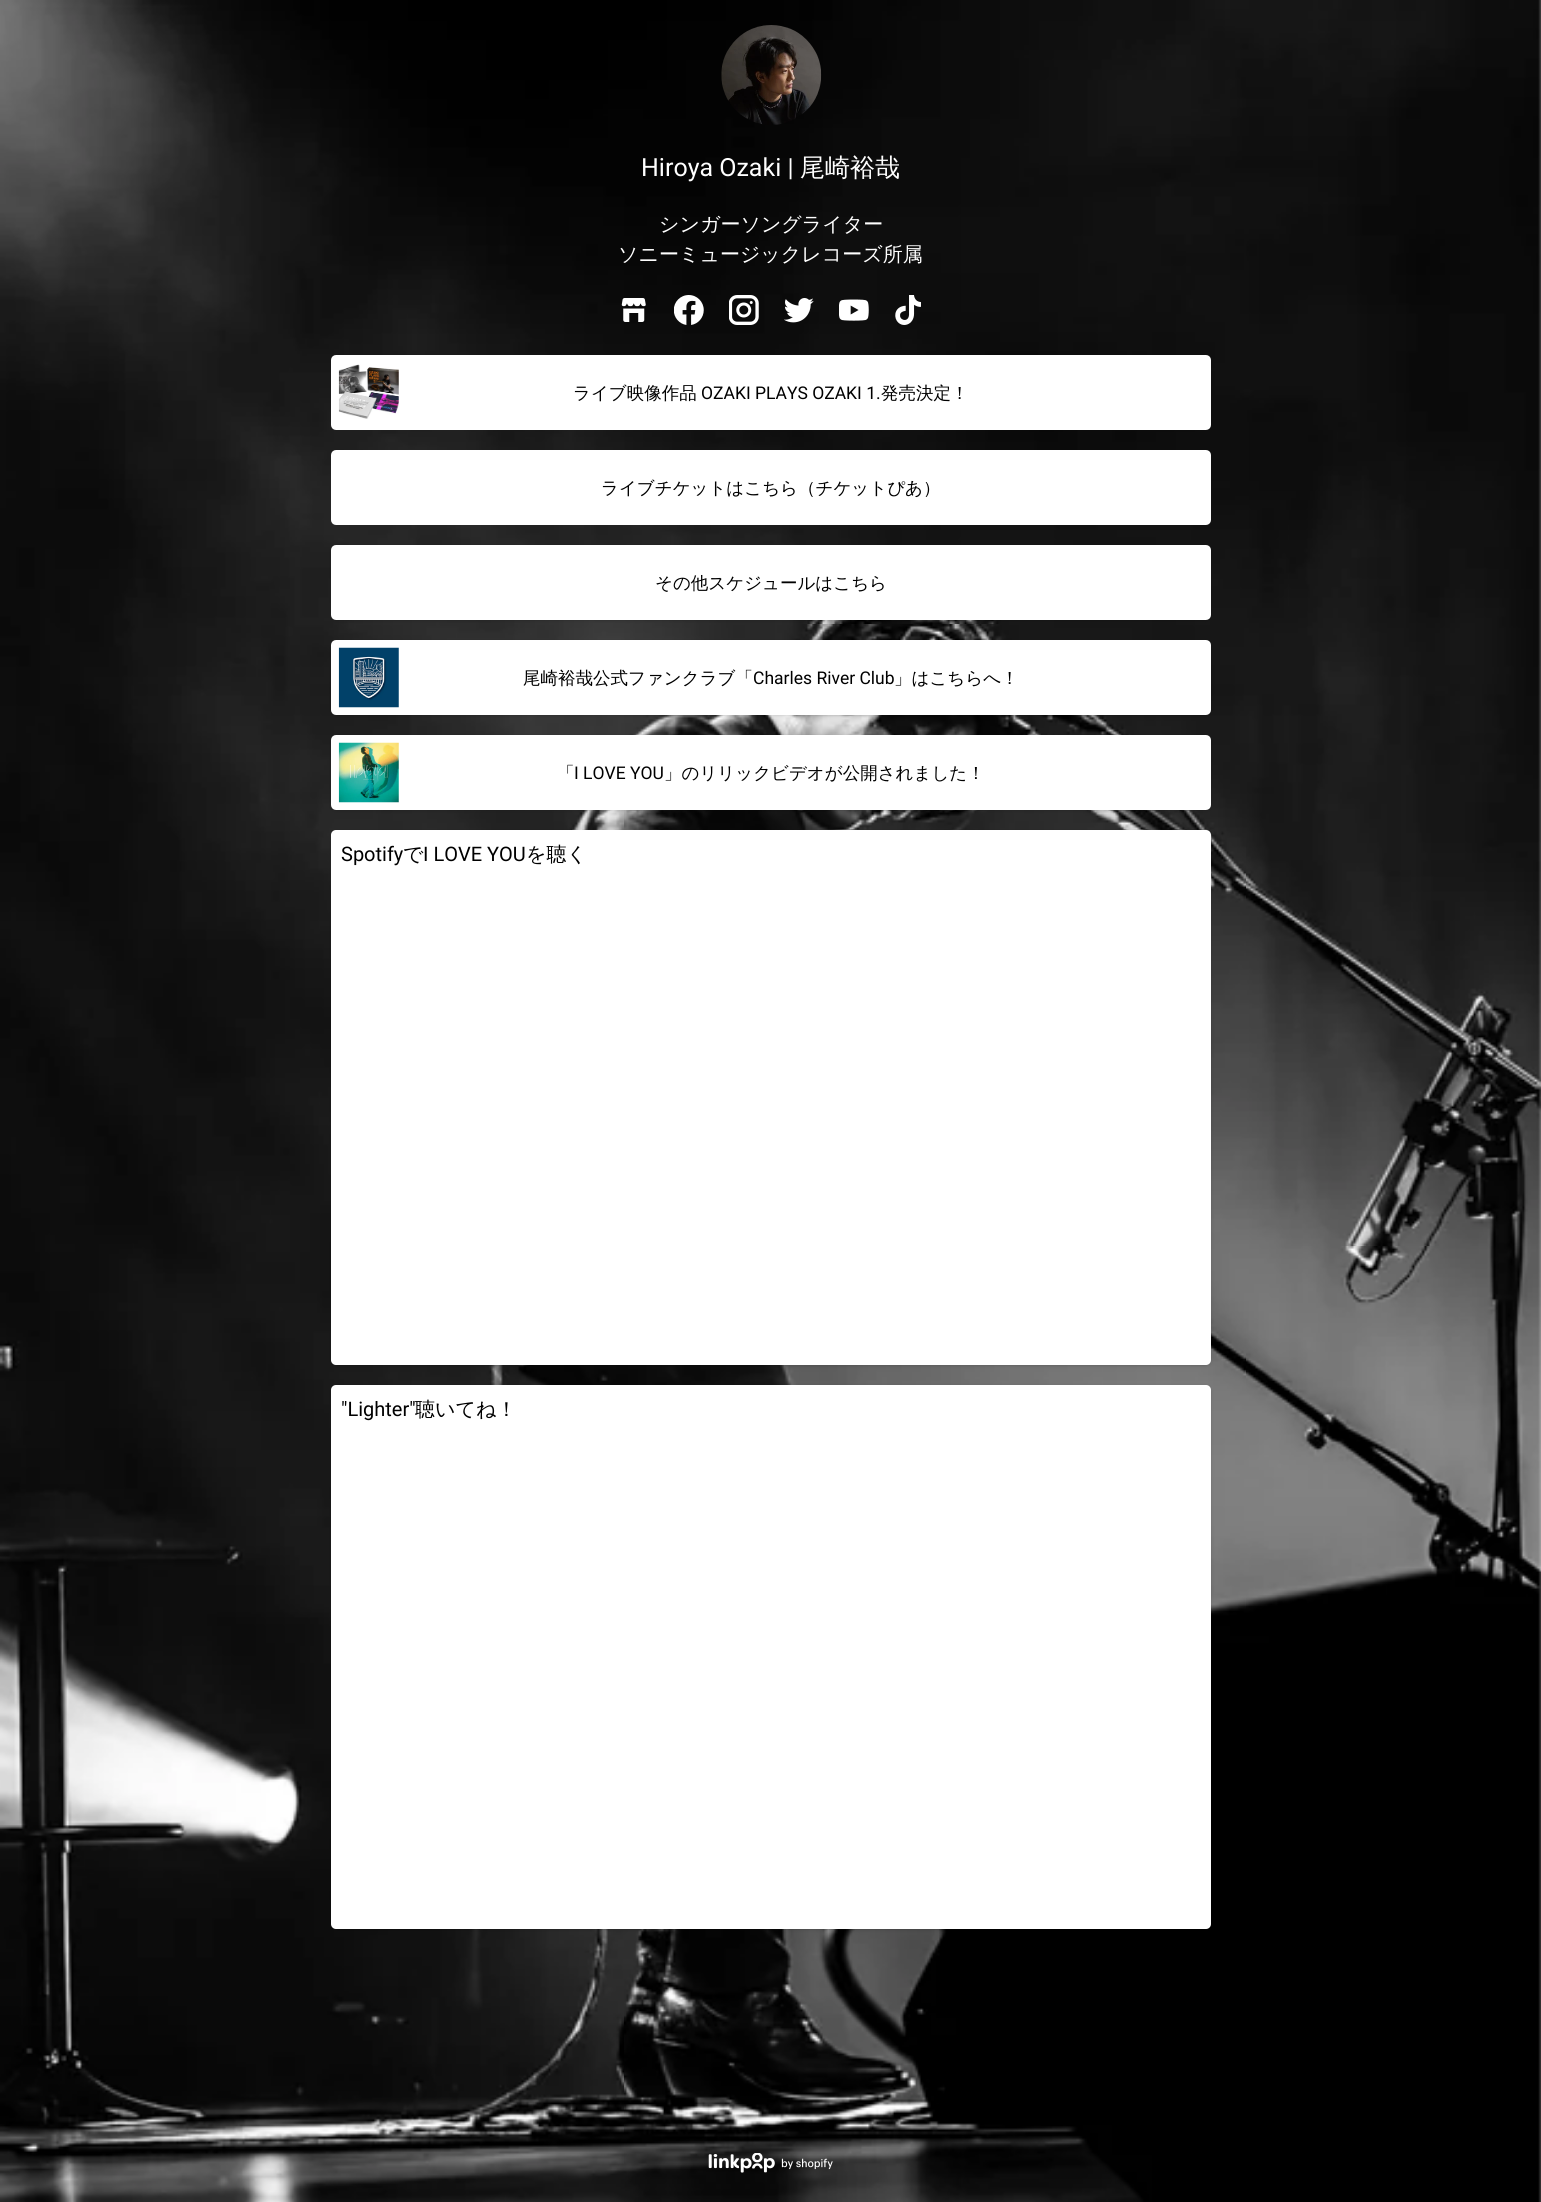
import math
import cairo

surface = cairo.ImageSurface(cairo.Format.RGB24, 1541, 2202)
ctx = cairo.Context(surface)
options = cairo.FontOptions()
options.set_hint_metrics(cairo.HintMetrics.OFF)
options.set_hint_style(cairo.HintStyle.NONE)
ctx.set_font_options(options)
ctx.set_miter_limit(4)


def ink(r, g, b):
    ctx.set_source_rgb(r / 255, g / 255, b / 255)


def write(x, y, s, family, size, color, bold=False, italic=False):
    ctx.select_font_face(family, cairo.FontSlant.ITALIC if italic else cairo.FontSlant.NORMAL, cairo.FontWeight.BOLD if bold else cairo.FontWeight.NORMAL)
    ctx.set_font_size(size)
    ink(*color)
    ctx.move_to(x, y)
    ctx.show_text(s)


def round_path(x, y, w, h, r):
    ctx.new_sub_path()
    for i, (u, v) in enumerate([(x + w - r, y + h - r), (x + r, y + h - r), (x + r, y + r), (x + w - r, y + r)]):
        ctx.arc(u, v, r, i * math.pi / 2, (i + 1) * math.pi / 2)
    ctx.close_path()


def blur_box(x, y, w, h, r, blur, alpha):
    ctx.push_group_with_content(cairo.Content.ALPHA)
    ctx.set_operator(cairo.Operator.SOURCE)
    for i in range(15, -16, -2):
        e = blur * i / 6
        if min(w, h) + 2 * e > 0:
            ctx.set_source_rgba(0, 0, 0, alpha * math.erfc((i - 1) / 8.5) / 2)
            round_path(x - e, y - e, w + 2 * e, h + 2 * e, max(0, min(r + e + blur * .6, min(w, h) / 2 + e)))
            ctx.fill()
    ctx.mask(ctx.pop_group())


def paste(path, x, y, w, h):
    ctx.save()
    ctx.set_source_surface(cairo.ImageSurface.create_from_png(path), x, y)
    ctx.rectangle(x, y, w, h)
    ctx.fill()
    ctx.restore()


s1 = dict(family="Roboto", size=25, color=(255, 255, 255))
s2 = dict(family="WenQuanYi Zen Hei Medium", size=25, color=(255, 255, 255))
s3 = dict(family="WenQuanYi Zen Hei Medium", size=20, color=(255, 255, 255))
s4 = dict(family="WenQuanYi Zen Hei Medium", size=17.5, color=(0, 0, 0))
s5 = dict(family="Roboto", size=17.5, color=(0, 0, 0))
s6 = dict(family="Roboto", size=20, color=(0, 0, 0))
s7 = dict(family="WenQuanYi Zen Hei Medium", size=20, color=(0, 0, 0))

ink(255, 255, 255)
ctx.paint()
paste("pic1.png", 0, 0, 1541, 2202)
paste("pic2.png", 721, 25, 101, 100)
write(641, 176, "Hiroya Ozaki |", **s1)
write(800, 176, "尾崎裕哉", **s2)
write(659, 231, "シンガーソングライター", **s3)
write(618, 261, "ソニーミュージックレコーズ所属", **s3)
paste("pic3.png", 621, 298, 25, 24)
paste("pic4.png", 674, 295, 30, 30)
paste("pic5.png", 729, 295, 30, 30)
paste("pic6.png", 784, 298, 30, 25)
paste("pic7.png", 839, 299, 30, 22)
paste("pic8.png", 895, 295, 26, 30)
round_path(335, 359, 872, 67, 1)
ctx.fill_preserve()
ctx.set_line_width(8)
ctx.stroke()
paste("pic9.png", 338, 364, 61, 55)
write(573, 399, "ライブ映像作品", **s4)
write(701, 399, "OZAKI PLAYS OZAKI 1.", **s5)
write(881, 399, "発売決定！", **s4)
ink(255, 255, 255)
round_path(335, 454, 872, 67, 1)
ctx.fill_preserve()
ctx.stroke()
write(601, 494, "ライブチケットはこちら（チケットぴあ）", **s4)
ink(0, 0, 0)
blur_box(333, 548, 877, 72, 4, 1, 0.1)
blur_box(331, 546, 880, 75, 5, 2, 0.1)
ink(255, 255, 255)
round_path(335, 549, 872, 67, 1)
ctx.fill_preserve()
ctx.stroke()
write(655, 589, "その他スケジュールはこちら", **s4)
ink(0, 0, 0)
blur_box(333, 643, 877, 72, 4, 1, 0.1)
blur_box(331, 641, 880, 75, 5, 2, 0.1)
ink(255, 255, 255)
round_path(335, 644, 872, 67, 1)
ctx.fill_preserve()
ctx.stroke()
paste("pic10.png", 338, 647, 61, 61)
write(523, 684, "尾崎裕哉公式ファンクラブ「", **s4)
write(753, 684, "Charles River Club", **s5)
write(894, 684, "」はこちらへ！", **s4)
ink(0, 0, 0)
blur_box(333, 738, 877, 72, 4, 1, 0.1)
blur_box(331, 736, 880, 75, 5, 2, 0.1)
ink(255, 255, 255)
round_path(335, 739, 872, 67, 1)
ctx.fill_preserve()
ctx.stroke()
paste("pic11.png", 338, 742, 61, 61)
write(557, 779, "「", **s4)
write(574, 779, "I LOVE YOU", **s5)
write(664, 779, "」のリリックビデオが公開されました！", **s4)
ink(0, 0, 0)
blur_box(333, 833, 877, 532, 4, 1, 0.1)
blur_box(331, 831, 880, 535, 5, 2, 0.1)
ink(255, 255, 255)
round_path(331, 830, 880, 535, 5)
ctx.fill()
write(341, 861, "Spotify", **s6)
write(403, 861, "で", **s7)
write(423, 861, "I LOVE YOU", **s6)
write(526, 861, "を聴く", **s7)
ink(0, 0, 0)
blur_box(333, 1388, 877, 541, 4, 1, 0.1)
blur_box(331, 1386, 880, 544, 5, 2, 0.1)
ink(255, 255, 255)
round_path(331, 1385, 880, 544, 5)
ctx.fill()
write(341, 1416, "\"Lighter\"", **s6)
write(415, 1416, "聴いてね！", **s7)
paste("pic12.png", 708, 2153, 125, 20)
surface.write_to_png("screenshot.png")
